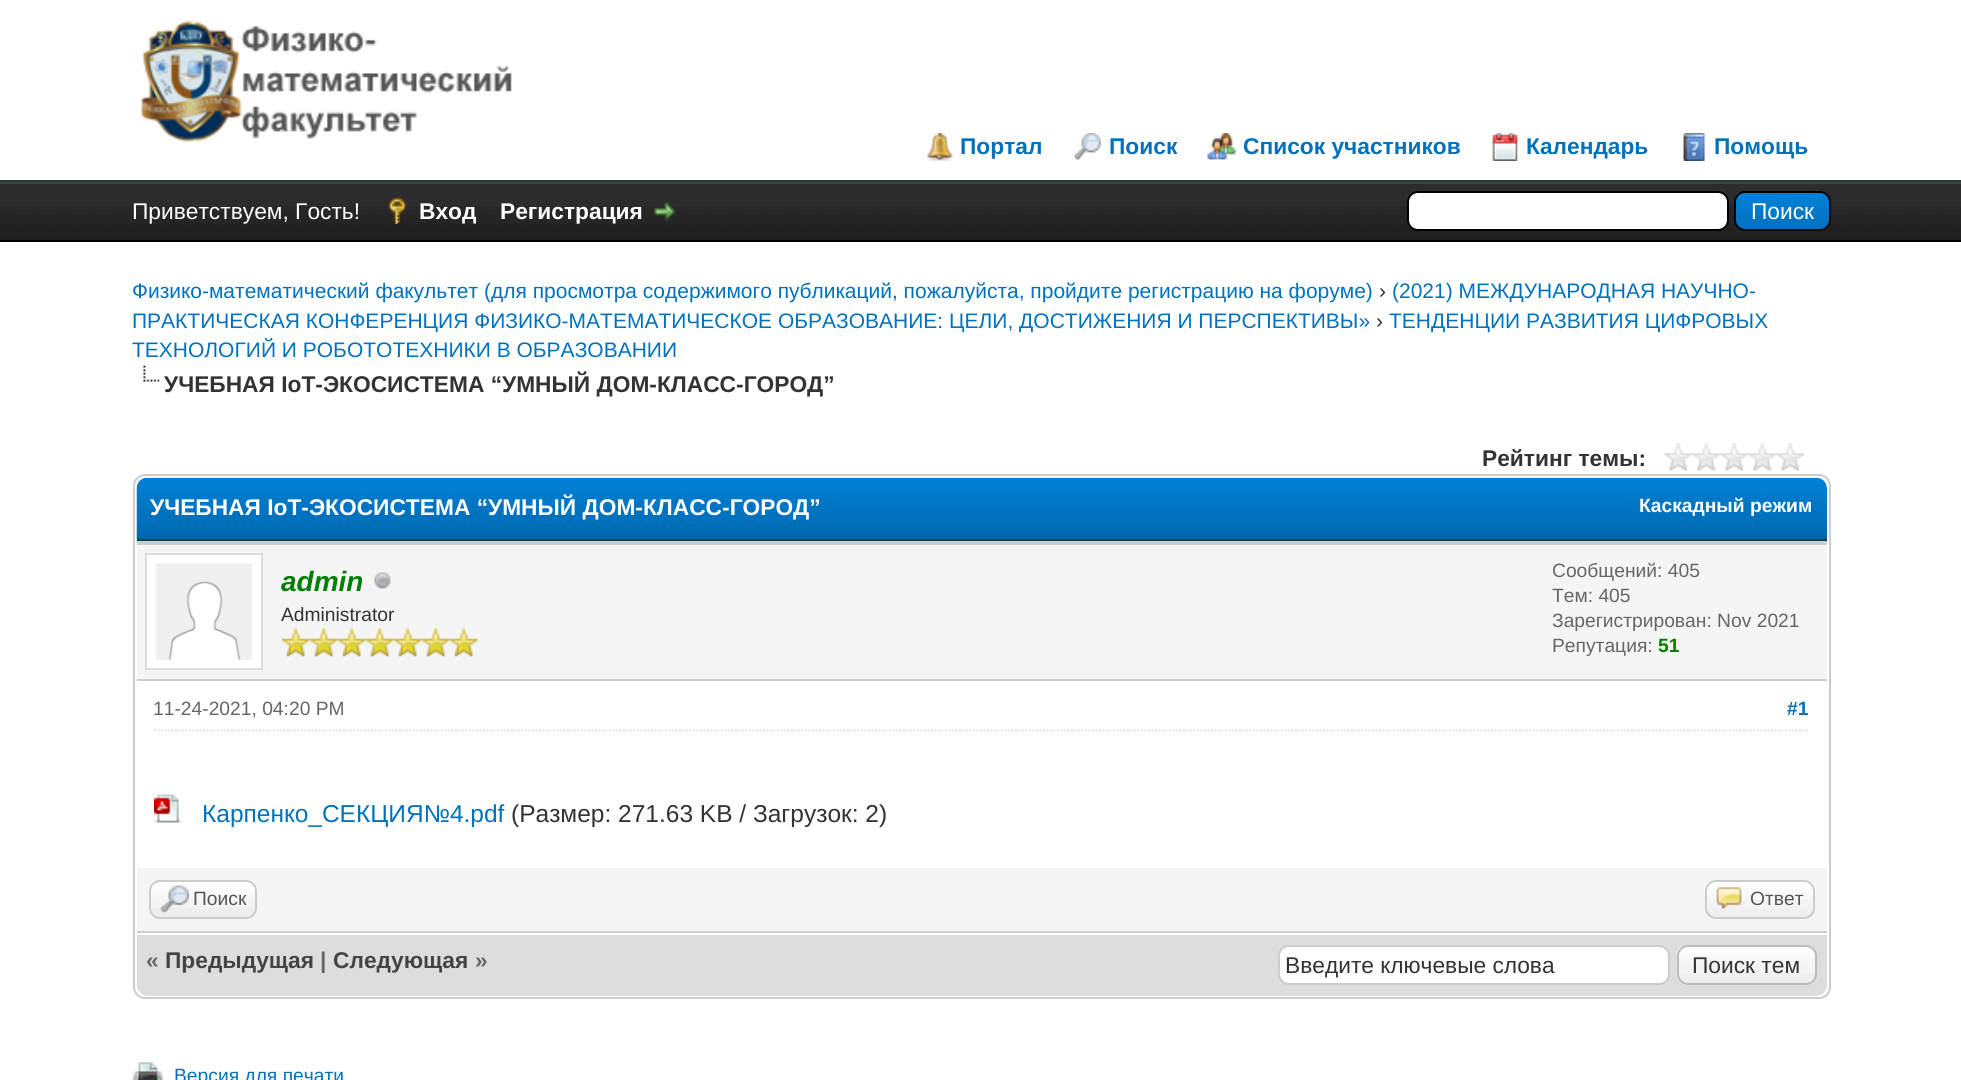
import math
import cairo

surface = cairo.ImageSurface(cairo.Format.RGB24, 1961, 1080)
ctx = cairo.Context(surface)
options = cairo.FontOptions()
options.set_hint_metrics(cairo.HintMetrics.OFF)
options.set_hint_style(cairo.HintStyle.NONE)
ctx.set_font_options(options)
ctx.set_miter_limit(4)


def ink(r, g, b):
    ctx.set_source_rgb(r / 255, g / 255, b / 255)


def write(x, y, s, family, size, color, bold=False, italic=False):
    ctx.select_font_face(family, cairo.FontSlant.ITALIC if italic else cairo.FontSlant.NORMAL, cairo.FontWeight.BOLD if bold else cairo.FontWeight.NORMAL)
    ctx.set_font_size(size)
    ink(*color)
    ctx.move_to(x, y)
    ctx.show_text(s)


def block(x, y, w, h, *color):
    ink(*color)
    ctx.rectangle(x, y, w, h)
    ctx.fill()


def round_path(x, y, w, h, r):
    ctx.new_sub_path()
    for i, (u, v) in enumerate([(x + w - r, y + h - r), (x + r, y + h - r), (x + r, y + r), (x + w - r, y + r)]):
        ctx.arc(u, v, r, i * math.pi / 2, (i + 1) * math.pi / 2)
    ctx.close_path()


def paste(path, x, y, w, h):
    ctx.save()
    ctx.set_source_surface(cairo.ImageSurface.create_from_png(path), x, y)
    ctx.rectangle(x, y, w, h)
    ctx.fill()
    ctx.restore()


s1 = dict(family="Liberation Sans", size=22.75, color=(0, 114, 188), bold=True)
s2 = dict(family="Liberation Sans", size=22.75, color=(255, 255, 255))
s3 = dict(family="Liberation Sans", size=22.75, color=(255, 255, 255), bold=True)
s4 = dict(family="Liberation Sans", size=21, color=(0, 114, 188))
s5 = dict(family="Liberation Sans", size=21, color=(51, 51, 51))
s6 = dict(family="Liberation Sans", size=22.75, color=(51, 51, 51), bold=True)
s7 = dict(family="Liberation Sans", size=19.25, color=(255, 255, 255), bold=True)
s8 = dict(family="Liberation Sans", size=28, color=(0, 128, 0), bold=True, italic=True)
s9 = dict(family="Liberation Sans", size=19.25, color=(51, 51, 51))
s10 = dict(family="Liberation Sans", size=19.25, color=(102, 102, 102))
s11 = dict(family="Liberation Sans", size=19.25, color=(0, 128, 0), bold=True)
s12 = dict(family="Liberation Sans", size=19.25, color=(0, 114, 188), bold=True)
s13 = dict(family="Liberation Sans", size=24.5, color=(0, 114, 188))
s14 = dict(family="Liberation Sans", size=24.5, color=(51, 51, 51))
s15 = dict(family="Liberation Sans", size=19.25, color=(85, 85, 85))
s16 = dict(family="Liberation Sans", size=22.75, color=(102, 102, 102), bold=True)
s17 = dict(family="Liberation Sans", size=22.75, color=(68, 68, 68), bold=True)
s18 = dict(family="Liberation Sans", size=22.75, color=(51, 51, 51))
s19 = dict(family="Liberation Sans", size=19.25, color=(0, 114, 188))

ink(255, 255, 255)
ctx.paint()
block(0, 180, 1961, 2, 38, 60, 48)
paste("pic1.png", 141, 20, 371, 123)
paste("pic2.png", 927, 133, 26, 28)
write(960, 154, "Портал", **s1)
paste("pic3.png", 1074, 133, 27, 27)
write(1109, 154, "Поиск", **s1)
paste("pic4.png", 1207, 133, 29, 27)
write(1243, 154, "Список участников", **s1)
paste("pic5.png", 1492, 133, 26, 28)
write(1526, 154, "Календарь", **s1)
paste("pic6.png", 1683, 133, 22, 28)
write(1714, 154, "Помощь", **s1)
paste("pic7.png", 0, 184, 1961, 56)
block(0, 182, 1961, 2, 68, 68, 68)
block(0, 240, 1961, 2, 0, 0, 0)
write(132, 219, "Приветствуем, Гость!", **s2)
paste("pic8.png", 388, 197, 19, 27)
write(419, 219, "Вход", **s3)
write(500, 219, "Регистрация", **s3)
paste("pic9.png", 654, 202, 22, 19)
round_path(1408, 192, 320, 38, 10)
ctx.fill_preserve()
ink(0, 0, 0)
ctx.stroke()
paste("pic10.png", 1734, 192, 97, 39)
round_path(1735, 192, 95, 38, 10)
ctx.stroke()
write(1751, 219, "Поиск", **s2)
write(132, 298, "Физико-математический факультет (для просмотра содержимого публикаций, пожалуйста, пройдите регистрацию на форуме)", **s4)
write(1379, 298, "›", **s5)
write(1392, 298, "(2021) МЕЖДУНАРОДНАЯ НАУЧНО-", **s4)
write(132, 328, "ПРАКТИЧЕСКАЯ КОНФЕРЕНЦИЯ ФИЗИКО-МАТЕМАТИЧЕСКОЕ ОБРАЗОВАНИЕ: ЦЕЛИ, ДОСТИЖЕНИЯ И ПЕРСПЕКТИВЫ»", **s4)
write(1376, 328, "›", **s5)
write(1389, 328, "ТЕНДЕНЦИИ РАЗВИТИЯ ЦИФРОВЫХ", **s4)
write(132, 357, "ТЕХНОЛОГИЙ И РОБОТОТЕХНИКИ В ОБРАЗОВАНИИ", **s4)
paste("pic11.png", 143, 365, 17, 17)
write(164, 392, "УЧЕБНАЯ IoT-ЭКОСИСТЕМА “УМНЫЙ ДОМ-КЛАСС-ГОРОД”", **s6)
write(1482, 466, "Рейтинг темы:", **s6)
paste("pic12.png", 1664, 443, 141, 28)
round_path(134, 475, 1696, 523, 11)
ink(204, 204, 204)
ctx.stroke()
paste("pic13.png", 136, 477, 1691, 64)
block(137, 539, 1690, 2, 38, 60, 48)
write(150, 515, "УЧЕБНАЯ IoT-ЭКОСИСТЕМА “УМНЫЙ ДОМ-КЛАСС-ГОРОД”", **s3)
write(1639, 512, "Каскадный режим", **s7)
block(137, 545, 1690, 134, 245, 245, 245)
block(137, 541, 1690, 4, 204, 204, 204)
block(137, 679, 1690, 2, 204, 204, 204)
ink(255, 255, 255)
ctx.rectangle(146, 554, 116, 115)
ctx.fill_preserve()
ink(221, 221, 221)
ctx.stroke()
paste("pic14.png", 155, 563, 97, 97)
write(281, 591, "admin", **s8)
paste("pic15.png", 374, 572, 17, 17)
write(281, 621, "Administrator", **s9)
paste("pic16.png", 281, 628, 29, 29)
paste("pic17.png", 309, 628, 29, 29)
paste("pic17.png", 337, 628, 29, 29)
paste("pic17.png", 365, 628, 29, 29)
paste("pic17.png", 393, 628, 29, 29)
paste("pic17.png", 421, 628, 29, 29)
paste("pic17.png", 449, 628, 29, 29)
write(1552, 577, "Сообщений: 405", **s10)
write(1552, 602, "Тем: 405", **s10)
write(1552, 627, "Зарегистрирован: Nov 2021", **s10)
write(1552, 652, "Репутация:", **s10)
write(1658, 652, "51", **s11)
ctx.new_path()
ctx.move_to(154, 730.5)
ctx.line_to(1809.5, 730.5)
ink(221, 221, 221)
ctx.set_line_width(1.8)
ctx.set_dash([1.75, 1.75])
ctx.stroke()
write(153, 715, "11-24-2021, 04:20 PM", **s10)
write(1787, 715, "#1", **s12)
paste("pic18.png", 154, 794, 28, 29)
write(202, 822, "Карпенко_СЕКЦИЯ№4.pdf", **s13)
write(511, 822, "(Размер: 271.63 KB / Загрузок: 2)", **s14)
block(137, 868, 1690, 63, 245, 245, 245)
block(137, 931, 1690, 2, 204, 204, 204)
ink(238, 238, 238)
round_path(149, 880, 108, 39, 11)
ctx.fill()
paste("pic19.png", 149, 882, 108, 26)
round_path(150, 881, 106, 37, 10)
ink(204, 204, 204)
ctx.set_line_width(2)
ctx.set_dash([])
ctx.stroke()
paste("pic20.png", 160, 885, 29, 28)
write(193, 905, "Поиск", **s15)
paste("pic21.png", 1705, 882, 110, 36)
round_path(1706, 881, 108, 37, 10)
ink(204, 204, 204)
ctx.stroke()
paste("pic22.png", 1716, 886, 26, 23)
write(1750, 905, "Ответ", **s15)
ink(221, 221, 221)
ctx.new_path()
ctx.move_to(137, 933)
ctx.line_to(1827, 933)
ctx.line_to(1827, 985)
ctx.curve_to(1827, 991, 1822, 996, 1816, 996)
ctx.line_to(148, 996)
ctx.curve_to(142, 996, 137, 991, 137, 985)
ctx.close_path()
ctx.fill()
block(137, 933, 1690, 2, 255, 255, 255)
write(146, 968, "«", **s16)
write(165, 968, "Предыдущая", **s17)
write(320, 968, "|", **s16)
write(333, 968, "Следующая", **s17)
write(475, 968, "»", **s16)
ink(255, 255, 255)
round_path(1279, 946, 390, 38, 10)
ctx.fill_preserve()
ink(204, 204, 204)
ctx.stroke()
write(1285, 973, "Введите ключевые слова", **s18)
paste("pic23.png", 1676, 946, 140, 39)
round_path(1678, 946, 138, 38, 10)
ink(187, 187, 187)
ctx.stroke()
write(1692, 973, "Поиск тем", **s18)
paste("pic24.png", 133, 1062, 30, 18)
write(174, 1082, "Версия для печати", **s19)
surface.write_to_png("screenshot.png")
